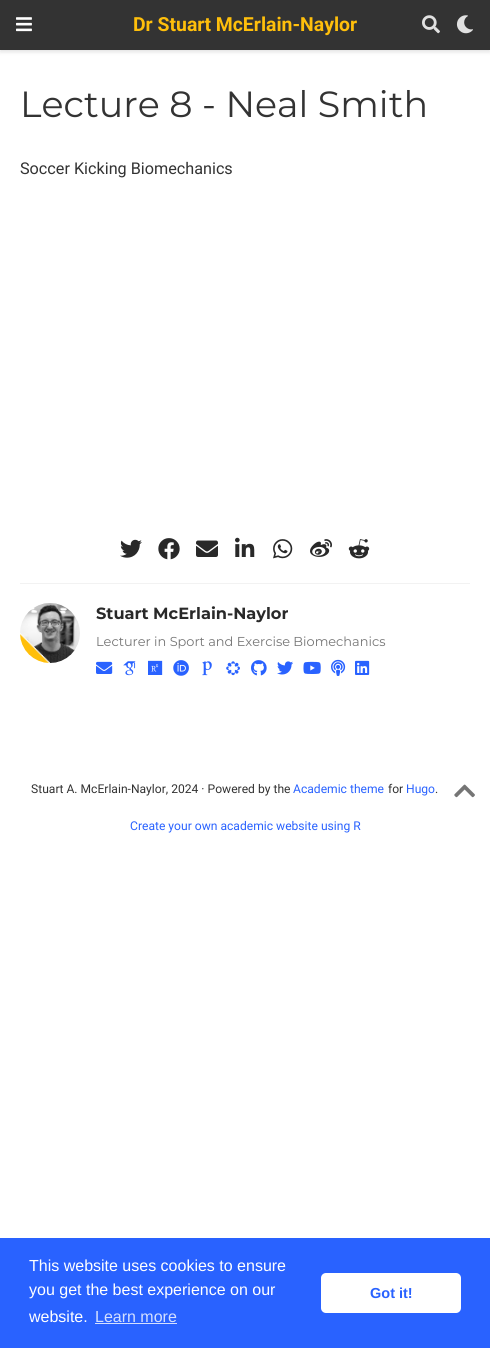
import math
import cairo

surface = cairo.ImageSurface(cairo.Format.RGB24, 490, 1348)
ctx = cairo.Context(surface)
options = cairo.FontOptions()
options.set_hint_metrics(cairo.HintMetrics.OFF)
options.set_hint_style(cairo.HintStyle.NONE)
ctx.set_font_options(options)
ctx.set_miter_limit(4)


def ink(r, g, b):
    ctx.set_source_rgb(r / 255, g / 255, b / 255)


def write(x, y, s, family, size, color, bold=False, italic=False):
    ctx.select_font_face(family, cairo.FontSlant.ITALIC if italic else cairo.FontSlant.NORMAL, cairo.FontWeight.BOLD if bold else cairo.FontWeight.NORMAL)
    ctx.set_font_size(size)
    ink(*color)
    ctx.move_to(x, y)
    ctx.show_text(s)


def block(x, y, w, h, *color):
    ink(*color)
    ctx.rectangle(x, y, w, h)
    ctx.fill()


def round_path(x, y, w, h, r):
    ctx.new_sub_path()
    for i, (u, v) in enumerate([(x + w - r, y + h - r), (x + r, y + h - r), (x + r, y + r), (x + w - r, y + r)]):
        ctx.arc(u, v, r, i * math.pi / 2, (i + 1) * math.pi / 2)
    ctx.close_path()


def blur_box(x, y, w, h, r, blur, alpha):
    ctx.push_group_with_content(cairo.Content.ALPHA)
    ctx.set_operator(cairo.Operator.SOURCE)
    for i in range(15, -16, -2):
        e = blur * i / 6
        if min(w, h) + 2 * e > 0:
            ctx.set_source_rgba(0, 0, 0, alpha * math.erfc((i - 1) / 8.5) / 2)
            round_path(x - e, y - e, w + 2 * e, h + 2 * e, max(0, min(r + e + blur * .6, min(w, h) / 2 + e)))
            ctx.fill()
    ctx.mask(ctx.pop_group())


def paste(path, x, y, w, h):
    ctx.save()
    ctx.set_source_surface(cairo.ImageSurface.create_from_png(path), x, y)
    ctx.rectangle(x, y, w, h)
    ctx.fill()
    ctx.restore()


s1 = dict(family="Roboto", size=19.4, color=(255, 191, 11), bold=True)
s2 = dict(family="Montserrat", size=36.4, color=(51, 51, 51))
s3 = dict(family="Roboto", size=16.2, color=(51, 51, 51))
s4 = dict(family="Montserrat", size=16.2, color=(41, 41, 41), bold=True)
s5 = dict(family="Montserrat", size=12.9, color=(117, 117, 117))
s6 = dict(family="Roboto", size=12.1, color=(51, 51, 51))
s7 = dict(family="Roboto", size=12.1, color=(41, 98, 255))
s8 = dict(family="Liberation Sans", size=16, color=(255, 255, 255))
s9 = dict(family="Liberation Sans", size=16, color=(212, 224, 255))
s10 = dict(family="Liberation Sans", size=14.5, color=(41, 98, 255), bold=True)

ink(255, 255, 255)
ctx.paint()
ink(0, 0, 0)
blur_box(0, 2, 490, 50, 0, 2, 0.11)
block(0, 0, 490, 50, 51, 51, 51)
paste("pic1.png", 16, 17, 16, 15)
write(133, 31, "Dr Stuart McErlain-Naylor", **s1)
paste("pic2.png", 422, 15, 18, 19)
paste("pic3.png", 456, 15, 17, 19)
write(20, 117, "Lecture 8 - Neal Smith", **s2)
write(20, 174, "Soccer Kicking Biomechanics", **s3)
paste("pic4.png", 120, 539, 22, 19)
paste("pic5.png", 158, 538, 22, 22)
paste("pic6.png", 196, 540, 22, 17)
paste("pic7.png", 235, 537, 20, 20)
paste("pic8.png", 273, 539, 20, 20)
paste("pic9.png", 310, 539, 22, 18)
paste("pic10.png", 348, 539, 22, 20)
block(20, 583, 450, 1, 242, 242, 242)
paste("pic11.png", 20, 603, 60, 60)
write(96, 619, "Stuart McErlain-Naylor", **s4)
write(96, 646, "Lecturer in Sport and Exercise Biomechanics", **s5)
paste("pic12.png", 96, 661, 17, 13)
paste("pic13.png", 123, 661, 13, 15)
paste("pic14.png", 148, 660, 15, 15)
paste("pic15.png", 173, 660, 16, 16)
paste("pic16.png", 202, 661, 10, 15)
paste("pic17.png", 226, 661, 14, 15)
paste("pic18.png", 251, 660, 16, 16)
paste("pic19.png", 277, 661, 16, 14)
paste("pic20.png", 303, 661, 18, 13)
paste("pic21.png", 331, 659, 15, 17)
paste("pic22.png", 355, 660, 15, 15)
write(31, 793, "Stuart A. McErlain-Naylor, 2024 · Powered by the", **s6)
write(293, 793, "Academic theme", **s7)
write(388, 793, "for", **s6)
write(406, 793, "Hugo", **s7)
write(435, 793, ".", **s6)
paste("pic23.png", 454, 784, 21, 14)
write(130, 830, "Create your own academic website using R", **s7)
block(0, 1238, 490, 110, 41, 98, 255)
write(29, 1271, "This website uses cookies to ensure", **s8)
write(29, 1295, "you get the best experience on our", **s8)
write(29, 1322, "website.", **s8)
write(95, 1322, "Learn more", **s9)
block(95, 1323, 82, 1, 212, 224, 255)
ink(255, 255, 255)
round_path(321, 1273, 140, 40, 5)
ctx.fill()
write(370, 1298, "Got it!", **s10)
surface.write_to_png("screenshot.png")
